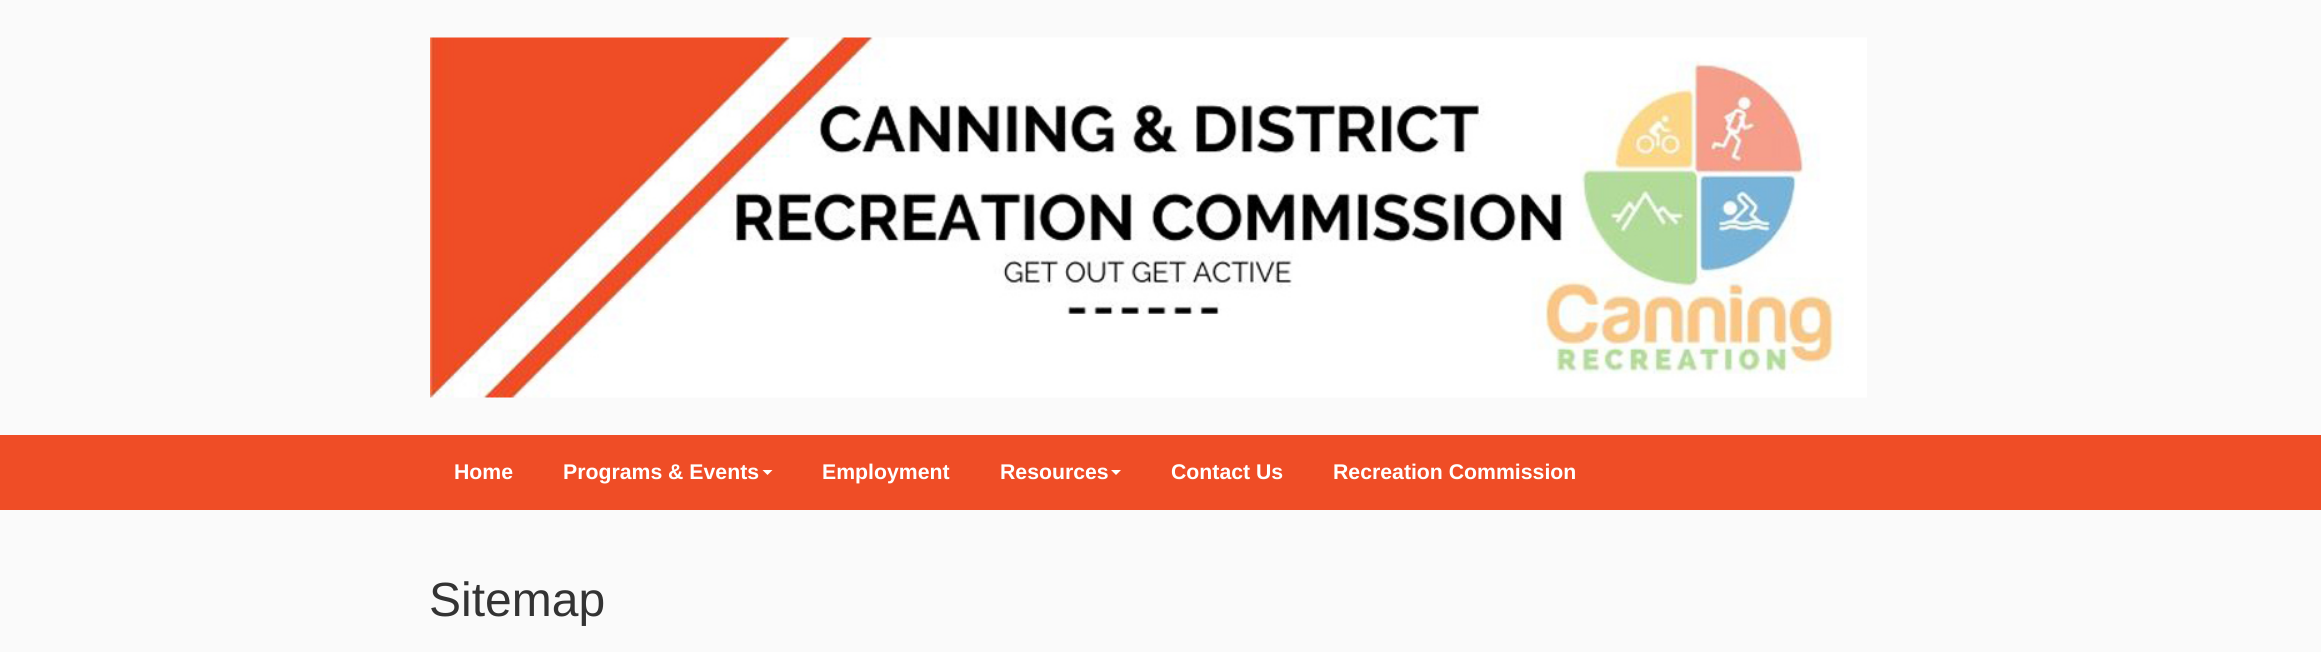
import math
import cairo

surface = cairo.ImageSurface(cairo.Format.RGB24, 2321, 652)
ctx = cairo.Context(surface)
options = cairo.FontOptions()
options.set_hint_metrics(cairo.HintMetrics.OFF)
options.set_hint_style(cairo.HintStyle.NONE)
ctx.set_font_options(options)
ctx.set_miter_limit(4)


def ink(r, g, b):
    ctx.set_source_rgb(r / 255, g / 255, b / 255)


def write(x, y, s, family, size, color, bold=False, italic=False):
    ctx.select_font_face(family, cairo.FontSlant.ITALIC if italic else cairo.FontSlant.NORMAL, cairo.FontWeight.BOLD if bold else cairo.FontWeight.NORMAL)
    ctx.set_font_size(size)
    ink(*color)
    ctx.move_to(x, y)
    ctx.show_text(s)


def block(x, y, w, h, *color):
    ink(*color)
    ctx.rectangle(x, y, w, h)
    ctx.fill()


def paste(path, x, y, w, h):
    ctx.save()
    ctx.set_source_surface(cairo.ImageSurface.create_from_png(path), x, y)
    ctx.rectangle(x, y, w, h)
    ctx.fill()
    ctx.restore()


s1 = dict(family="Liberation Sans", size=21.25, color=(255, 255, 255), bold=True)
s2 = dict(family="Liberation Sans", size=48, color=(51, 51, 51))

ink(250, 250, 250)
ctx.paint()
paste("pic1.png", 430, 37, 1437, 361)
block(0, 435, 2321, 75, 239, 77, 38)
write(454, 479, "Home", **s1)
write(563, 479, "Programs & Events", **s1)
ctx.new_path()
ctx.move_to(762.5, 470)
ctx.line_to(772.5, 470)
ctx.line_to(767.5, 475)
ctx.close_path()
ctx.fill()
write(822, 479, "Employment", **s1)
write(1000, 479, "Resources", **s1)
ctx.new_path()
ctx.move_to(1111, 470)
ctx.line_to(1121, 470)
ctx.line_to(1116, 475)
ctx.close_path()
ctx.fill()
write(1171, 479, "Contact Us", **s1)
write(1333, 479, "Recreation Commission", **s1)
write(429, 616, "Sitemap", **s2)
surface.write_to_png("screenshot.png")
